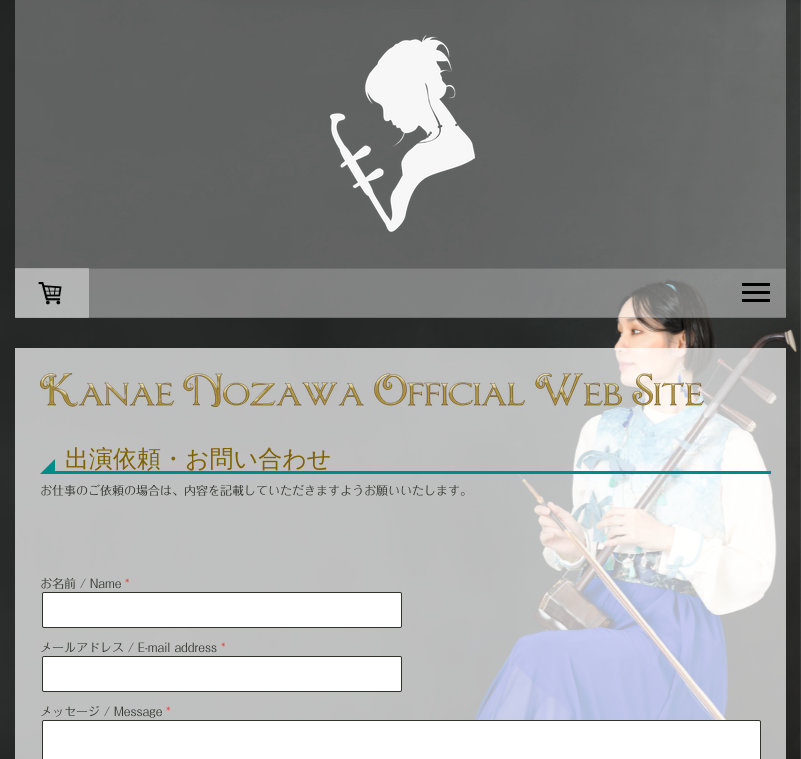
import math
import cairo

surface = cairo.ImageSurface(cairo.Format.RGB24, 801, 759)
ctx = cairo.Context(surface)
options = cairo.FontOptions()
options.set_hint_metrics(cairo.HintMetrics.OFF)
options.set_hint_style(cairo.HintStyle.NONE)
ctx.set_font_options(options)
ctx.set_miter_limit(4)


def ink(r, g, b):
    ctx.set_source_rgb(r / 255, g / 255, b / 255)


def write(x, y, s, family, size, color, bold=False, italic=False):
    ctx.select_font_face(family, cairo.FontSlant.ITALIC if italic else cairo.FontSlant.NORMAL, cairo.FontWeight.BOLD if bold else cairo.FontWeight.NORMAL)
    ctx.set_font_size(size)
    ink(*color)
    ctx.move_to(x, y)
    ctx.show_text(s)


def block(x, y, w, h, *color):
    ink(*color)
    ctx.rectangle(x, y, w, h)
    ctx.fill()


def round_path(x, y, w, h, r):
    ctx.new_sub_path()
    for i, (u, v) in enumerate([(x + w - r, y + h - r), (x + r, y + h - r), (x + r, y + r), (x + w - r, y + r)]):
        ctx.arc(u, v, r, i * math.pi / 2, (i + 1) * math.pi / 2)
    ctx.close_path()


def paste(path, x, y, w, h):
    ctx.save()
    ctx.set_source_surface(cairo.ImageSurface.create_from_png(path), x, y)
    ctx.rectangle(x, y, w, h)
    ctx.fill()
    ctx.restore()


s1 = dict(family="WenQuanYi Zen Hei Medium", size=24, color=(128, 97, 0))
s2 = dict(family="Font", size=12, color=(48, 52, 45))
s3 = dict(family="Font", size=12, color=(235, 67, 62))

ink(255, 255, 255)
ctx.paint()
paste("pic1.png", 0, 0, 801, 759)
ctx.set_source_rgba(1, 1, 1, 0.28)
ctx.rectangle(15, 0, 771, 318)
ctx.fill()
paste("pic2.png", 329, 35, 146, 197)
ctx.set_source_rgba(1, 1, 1, 0.2)
ctx.rectangle(15, 268, 771, 50)
ctx.fill()
ctx.set_source_rgba(0, 0, 0, 0.15)
ctx.rectangle(15, 268, 771, 1)
ctx.fill()
ctx.rectangle(15, 317, 771, 1)
ctx.fill()
ctx.set_source_rgba(1, 1, 1, 0.4)
round_path(15, 268, 74, 50, 1)
ctx.fill()
paste("pic3.png", 38, 282, 24, 23)
block(742, 291, 28, 3, 0, 0, 0)
block(742, 283, 28, 3, 0, 0, 0)
block(742, 299, 28, 3, 0, 0, 0)
ctx.set_source_rgba(1, 1, 1, 0.7)
ctx.rectangle(15, 348, 771, 411)
ctx.fill()
paste("pic4.png", 40, 373, 664, 34)
ink(0, 139, 139)
ctx.new_path()
ctx.move_to(55, 474)
ctx.line_to(40, 474)
ctx.line_to(55, 459)
ctx.close_path()
ctx.fill()
write(65, 467, "出演依頼・お問い合わせ", **s1)
block(50, 471, 721, 3, 0, 139, 139)
write(40, 495, "お仕事のご依頼の場合は、内容を記載していただきますようお願いいたします。", **s2)
write(40, 588, "お名前 / Name", **s2)
write(125, 588, "*", **s3)
ink(255, 255, 255)
round_path(42.5, 592.5, 359, 35, 1.5)
ctx.fill_preserve()
ink(48, 52, 45)
ctx.set_line_width(1)
ctx.stroke()
write(40, 652, "メールアドレス / E-mail address", **s2)
write(221, 652, "*", **s3)
ink(255, 255, 255)
round_path(42.5, 656.5, 359, 35, 1.5)
ctx.fill_preserve()
ink(48, 52, 45)
ctx.stroke()
write(40, 716, "メッセージ / Message", **s2)
write(166, 716, "*", **s3)
ink(255, 255, 255)
round_path(42.5, 720.5, 718, 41, 1.5)
ctx.fill_preserve()
ink(48, 52, 45)
ctx.stroke()
surface.write_to_png("screenshot.png")
